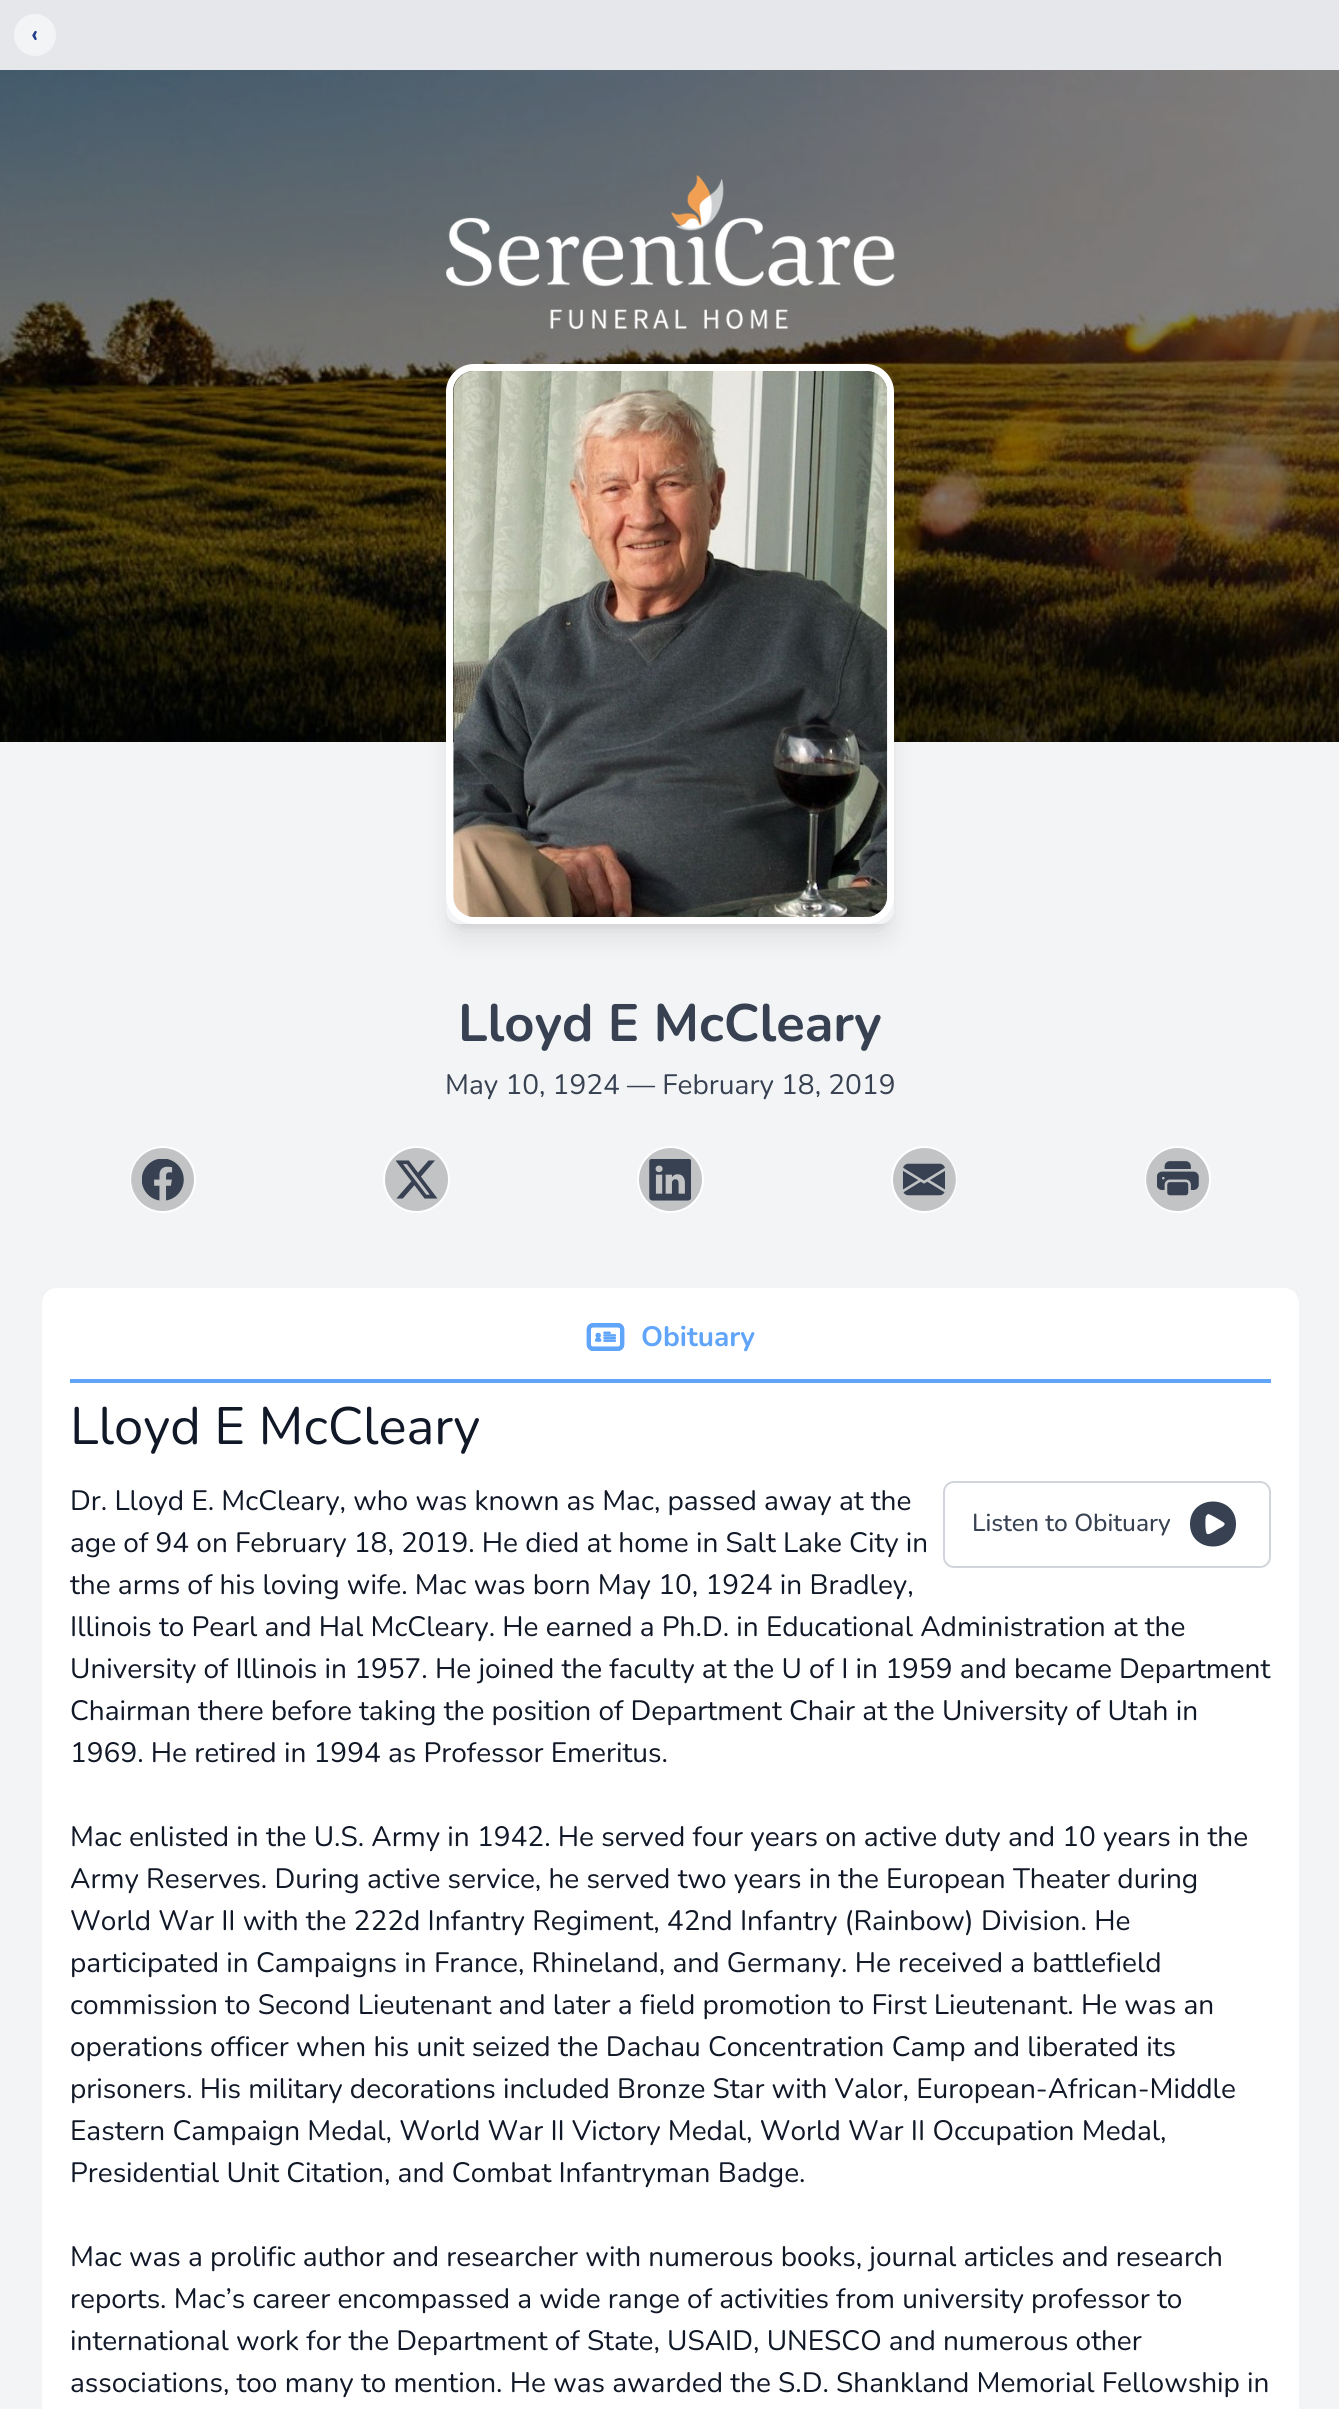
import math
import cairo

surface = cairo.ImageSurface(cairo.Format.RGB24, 1339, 2409)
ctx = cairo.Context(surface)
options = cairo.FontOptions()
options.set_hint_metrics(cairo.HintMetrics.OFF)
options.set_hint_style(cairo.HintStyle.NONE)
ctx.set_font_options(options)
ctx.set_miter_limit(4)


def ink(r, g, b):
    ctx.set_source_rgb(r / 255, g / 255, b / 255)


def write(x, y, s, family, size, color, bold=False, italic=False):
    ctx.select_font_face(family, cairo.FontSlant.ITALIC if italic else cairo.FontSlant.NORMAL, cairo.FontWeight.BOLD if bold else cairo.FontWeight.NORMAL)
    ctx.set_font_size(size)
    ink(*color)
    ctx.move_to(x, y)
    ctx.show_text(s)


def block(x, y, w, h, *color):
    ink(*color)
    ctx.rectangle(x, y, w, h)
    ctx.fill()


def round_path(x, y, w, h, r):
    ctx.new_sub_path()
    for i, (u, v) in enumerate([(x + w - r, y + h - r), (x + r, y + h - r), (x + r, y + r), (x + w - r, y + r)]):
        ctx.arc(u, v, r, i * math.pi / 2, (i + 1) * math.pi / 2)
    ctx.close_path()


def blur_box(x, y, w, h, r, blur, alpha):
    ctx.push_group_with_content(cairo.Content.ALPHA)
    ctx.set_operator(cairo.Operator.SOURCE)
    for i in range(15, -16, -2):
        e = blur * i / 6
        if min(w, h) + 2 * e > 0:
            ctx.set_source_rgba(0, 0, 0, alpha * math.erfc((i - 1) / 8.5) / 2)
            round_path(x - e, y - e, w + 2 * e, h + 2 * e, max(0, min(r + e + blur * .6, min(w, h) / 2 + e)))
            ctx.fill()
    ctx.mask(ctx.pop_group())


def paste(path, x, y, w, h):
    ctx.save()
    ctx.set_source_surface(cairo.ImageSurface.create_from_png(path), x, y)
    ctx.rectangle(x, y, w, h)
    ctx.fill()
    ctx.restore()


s1 = dict(family="Nunito", size=24.5, color=(30, 58, 138), bold=True)
s2 = dict(family="Nunito", size=52.5, color=(55, 65, 81), bold=True)
s3 = dict(family="Nunito", size=28, color=(55, 65, 81))
s4 = dict(family="Nunito", size=28, color=(96, 165, 250), bold=True)
s5 = dict(family="Nunito", size=52.5, color=(17, 24, 39))
s6 = dict(family="Nunito", size=28, color=(17, 24, 39))
s7 = dict(family="Nunito Medium", size=24.5, color=(55, 65, 81))

ink(243, 244, 246)
ctx.paint()
block(0, 0, 1339, 70, 229, 231, 235)
ink(243, 244, 246)
ctx.arc(35, 35, 21, 0, 2 * math.pi)
ctx.fill()
write(31, 42, "‹", **s1)
paste("pic1.png", 0, 70, 1339, 672)
paste("pic2.png", 446, 175, 449, 154)
ctx.save()
ctx.set_fill_rule(cairo.FillRule.EVEN_ODD)
ctx.new_path()
ctx.move_to(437, 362)
ctx.line_to(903, 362)
ctx.line_to(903, 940)
ctx.line_to(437, 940)
ctx.close_path()
ctx.move_to(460, 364)
ctx.line_to(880, 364)
ctx.curve_to(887.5, 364, 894, 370.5, 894, 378)
ctx.line_to(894, 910)
ctx.curve_to(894, 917.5, 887.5, 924, 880, 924)
ctx.line_to(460, 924)
ctx.curve_to(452.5, 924, 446, 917.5, 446, 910)
ctx.line_to(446, 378)
ctx.curve_to(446, 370.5, 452.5, 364, 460, 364)
ctx.close_path()
ctx.clip()
ink(0, 0, 0)
blur_box(453, 378, 434, 546, 7, 5, 0.1)
ctx.restore()
ctx.save()
ctx.set_fill_rule(cairo.FillRule.EVEN_ODD)
ctx.new_path()
ctx.move_to(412, 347)
ctx.line_to(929, 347)
ctx.line_to(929, 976)
ctx.line_to(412, 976)
ctx.close_path()
ctx.move_to(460, 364)
ctx.line_to(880, 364)
ctx.curve_to(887.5, 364, 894, 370.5, 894, 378)
ctx.line_to(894, 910)
ctx.curve_to(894, 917.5, 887.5, 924, 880, 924)
ctx.line_to(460, 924)
ctx.curve_to(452.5, 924, 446, 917.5, 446, 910)
ctx.line_to(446, 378)
ctx.curve_to(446, 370.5, 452.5, 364, 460, 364)
ctx.close_path()
ctx.clip()
ink(0, 0, 0)
blur_box(452, 387, 437, 549, 9, 13, 0.1)
ctx.restore()
round_path(449.5, 367.5, 441, 553, 24.5)
ink(255, 255, 255)
ctx.set_line_width(7)
ctx.stroke()
paste("pic3.png", 453, 371, 435, 546)
write(458, 1041, "Lloyd E McCleary", **s2)
write(445, 1094, "May 10, 1924 — February 18, 2019", **s3)
round_path(131, 1147, 64, 65, 32)
ink(255, 255, 255)
ctx.set_line_width(2)
ctx.stroke()
ctx.set_source_rgba(0, 0, 0, 0.2)
ctx.arc(162.5, 1179.5, 31.5, 0, 2 * math.pi)
ctx.fill()
paste("pic4.png", 142, 1159, 42, 42)
ctx.arc(416.5, 1179.5, 32.5, 0, 2 * math.pi)
ink(255, 255, 255)
ctx.stroke()
ctx.set_source_rgba(0, 0, 0, 0.2)
ctx.arc(416.5, 1179.5, 31.5, 0, 2 * math.pi)
ctx.fill()
paste("pic5.png", 396, 1160, 42, 39)
ctx.arc(670.5, 1179.5, 32.5, 0, 2 * math.pi)
ink(255, 255, 255)
ctx.stroke()
ctx.set_source_rgba(0, 0, 0, 0.2)
ctx.arc(670.5, 1179.5, 31.5, 0, 2 * math.pi)
ctx.fill()
paste("pic6.png", 649, 1159, 42, 42)
round_path(892, 1147, 64, 65, 32)
ink(255, 255, 255)
ctx.stroke()
ctx.set_source_rgba(0, 0, 0, 0.2)
ctx.arc(924.5, 1179.5, 31.5, 0, 2 * math.pi)
ctx.fill()
paste("pic7.png", 903, 1163, 42, 33)
round_path(1146, 1147, 64, 65, 32)
ink(255, 255, 255)
ctx.stroke()
ctx.set_source_rgba(0, 0, 0, 0.2)
ctx.arc(1177.5, 1179.5, 31.5, 0, 2 * math.pi)
ctx.fill()
paste("pic8.png", 1157, 1161, 42, 35)
ctx.save()
ctx.rectangle(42, 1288, 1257, 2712)
ctx.clip()
ink(0, 0, 0)
blur_box(42, 1290, 1257, 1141, 14, 2.5, 0.1)
ctx.restore()
ink(255, 255, 255)
round_path(42, 1288, 1257, 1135, 14)
ctx.fill()
block(70, 1379, 1201, 4, 96, 165, 250)
paste("pic9.png", 586, 1323, 39, 28)
write(641, 1346, "Obituary", **s4)
write(70, 1444, "Lloyd E McCleary", **s5)
write(70, 1510, "Dr. Lloyd E. McCleary, who was known as Mac, passed away at the", **s6)
write(70, 1552, "age of 94 on February 18, 2019. He died at home in Salt Lake City in", **s6)
write(70, 1594, "the arms of his loving wife. Mac was born May 10, 1924 in Bradley,", **s6)
write(70, 1636, "Illinois to Pearl and Hal McCleary. He earned a Ph.D. in Educational Administration at the", **s6)
write(70, 1678, "University of Illinois in 1957. He joined the faculty at the U of I in 1959 and became Department", **s6)
write(70, 1720, "Chairman there before taking the position of Department Chair at the University of Utah in", **s6)
write(70, 1762, "1969. He retired in 1994 as Professor Emeritus.", **s6)
write(70, 1846, "Mac enlisted in the U.S. Army in 1942. He served four years on active duty and 10 years in the", **s6)
write(70, 1888, "Army Reserves. During active service, he served two years in the European Theater during", **s6)
write(70, 1930, "World War II with the 222d Infantry Regiment, 42nd Infantry (Rainbow) Division. He", **s6)
write(70, 1972, "participated in Campaigns in France, Rhineland, and Germany. He received a battlefield", **s6)
write(70, 2014, "commission to Second Lieutenant and later a field promotion to First Lieutenant. He was an", **s6)
write(70, 2056, "operations officer when his unit seized the Dachau Concentration Camp and liberated its", **s6)
write(70, 2098, "prisoners. His military decorations included Bronze Star with Valor, European-African-Middle", **s6)
write(70, 2140, "Eastern Campaign Medal, World War II Victory Medal, World War II Occupation Medal,", **s6)
write(70, 2182, "Presidential Unit Citation, and Combat Infantryman Badge.", **s6)
write(70, 2266, "Mac was a prolific author and researcher with numerous books, journal articles and research", **s6)
write(70, 2308, "reports. Mac’s career encompassed a wide range of activities from university professor to", **s6)
write(70, 2350, "international work for the Department of State, USAID, UNESCO and numerous other", **s6)
write(70, 2392, "associations, too many to mention. He was awarded the S.D. Shankland Memorial Fellowship in", **s6)
round_path(944, 1482, 326, 85, 10)
ink(209, 213, 219)
ctx.stroke()
write(972, 1531, "Listen to Obituary", **s7)
ctx.set_fill_rule(cairo.FillRule.EVEN_ODD)
ctx.new_path()
ctx.move_to(1190, 1524)
ctx.curve_to(1190, 1494, 1236, 1494, 1236, 1524)
ctx.curve_to(1236, 1554, 1190, 1554, 1190, 1524)
ctx.close_path()
ctx.move_to(1223, 1522)
ctx.curve_to(1228, 1525, 1220, 1528, 1218, 1529)
ctx.curve_to(1216, 1530, 1210, 1535, 1207, 1534)
ctx.curve_to(1205, 1532, 1205, 1518, 1206, 1516)
ctx.line_to(1208, 1514)
ctx.curve_to(1210, 1514, 1220, 1520, 1223, 1522)
ctx.close_path()
ctx.fill()
surface.write_to_png("screenshot.png")
